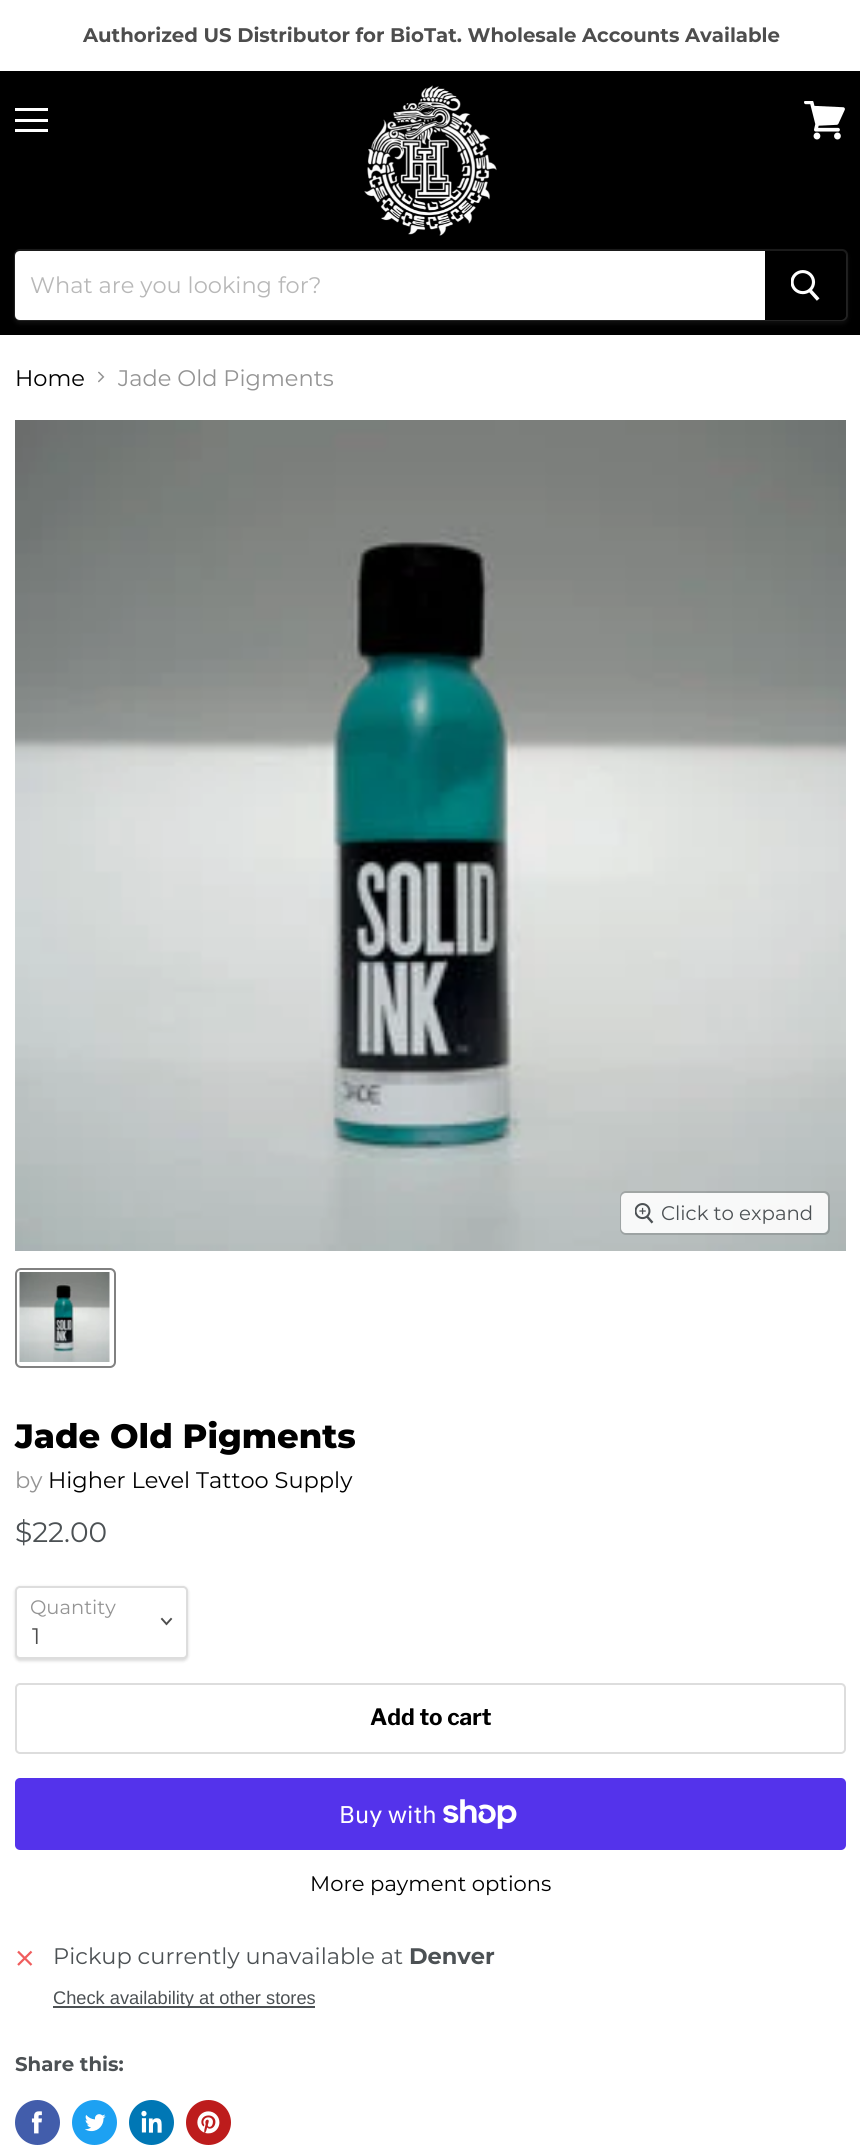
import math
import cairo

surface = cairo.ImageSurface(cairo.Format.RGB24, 860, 2145)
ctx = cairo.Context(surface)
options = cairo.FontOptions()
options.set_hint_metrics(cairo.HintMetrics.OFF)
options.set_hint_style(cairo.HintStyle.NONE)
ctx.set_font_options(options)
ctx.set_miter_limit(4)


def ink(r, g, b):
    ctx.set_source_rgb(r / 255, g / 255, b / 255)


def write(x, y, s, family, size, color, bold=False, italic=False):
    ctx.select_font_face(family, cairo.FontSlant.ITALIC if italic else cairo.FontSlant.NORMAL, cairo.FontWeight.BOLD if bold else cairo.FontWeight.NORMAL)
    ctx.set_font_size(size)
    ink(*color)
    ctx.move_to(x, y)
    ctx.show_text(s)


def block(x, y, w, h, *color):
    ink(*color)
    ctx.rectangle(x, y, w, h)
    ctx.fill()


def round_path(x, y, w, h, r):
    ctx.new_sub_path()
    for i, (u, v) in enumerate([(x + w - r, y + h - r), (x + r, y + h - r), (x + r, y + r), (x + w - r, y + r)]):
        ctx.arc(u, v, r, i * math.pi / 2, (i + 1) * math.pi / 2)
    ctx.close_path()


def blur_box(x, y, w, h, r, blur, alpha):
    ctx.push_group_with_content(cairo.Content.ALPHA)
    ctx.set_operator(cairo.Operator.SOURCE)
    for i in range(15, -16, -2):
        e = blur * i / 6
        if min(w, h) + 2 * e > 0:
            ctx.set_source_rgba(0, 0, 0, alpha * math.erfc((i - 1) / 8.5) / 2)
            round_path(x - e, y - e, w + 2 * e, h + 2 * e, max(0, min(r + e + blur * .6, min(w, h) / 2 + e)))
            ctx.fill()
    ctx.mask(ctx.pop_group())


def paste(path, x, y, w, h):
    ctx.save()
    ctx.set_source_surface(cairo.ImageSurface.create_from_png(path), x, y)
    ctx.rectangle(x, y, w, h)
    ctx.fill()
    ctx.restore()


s1 = dict(family="Montserrat", size=19.7, color=(77, 77, 77), bold=True)
s2 = dict(family="Montserrat", size=22.5, color=(184, 184, 184))
s3 = dict(family="Montserrat", size=22.5, color=(0, 0, 0))
s4 = dict(family="Montserrat", size=22.5, color=(148, 148, 148))
s5 = dict(family="Montserrat", size=19.7, color=(76, 81, 84))
s6 = dict(family="Montserrat ExtraBold", size=33.75, color=(0, 0, 0))
s7 = dict(family="Montserrat", size=28, color=(76, 81, 84))
s8 = dict(family="Montserrat", size=19.5, color=(148, 148, 148))
s9 = dict(family="Montserrat", size=22.5, color=(77, 77, 77))
s10 = dict(family="Libre Franklin", size=22.5, color=(0, 0, 0), bold=True)
s11 = dict(family="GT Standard", size=24, color=(255, 255, 255))
s12 = dict(family="Montserrat", size=21.1, color=(0, 0, 0))
s13 = dict(family="Montserrat", size=22.5, color=(76, 81, 84))
s14 = dict(family="Montserrat", size=22.5, color=(76, 81, 84), bold=True)
s15 = dict(family="Liberation Sans", size=18.25, color=(76, 81, 84))
s16 = dict(family="Montserrat", size=19.7, color=(76, 81, 84), bold=True)

ink(255, 255, 255)
ctx.paint()
write(83, 42, "Authorized US Distributor for BioTat. Wholesale Accounts Available", **s1)
block(0, 71, 860, 264, 0, 0, 0)
block(15, 108, 33, 3, 255, 255, 255)
block(15, 119, 33, 3, 255, 255, 255)
block(15, 129, 33, 3, 255, 255, 255)
paste("pic1.png", 804, 101, 41, 39)
paste("pic2.png", 364, 85, 133, 151)
ink(128, 128, 128)
blur_box(14, 252, 834, 72, 6, 2, 0.11)
round_path(15, 250, 832, 70, 5)
ctx.set_source_rgba(0.502, 0.502, 0.502, 0.2)
ctx.stroke()
ink(255, 255, 255)
ctx.new_path()
ctx.move_to(20, 251)
ctx.line_to(765, 251)
ctx.line_to(765, 320)
ctx.line_to(20, 320)
ctx.curve_to(17, 320, 15, 318, 15, 315)
ctx.line_to(15, 256)
ctx.curve_to(15, 253, 17, 251, 20, 251)
ctx.close_path()
ctx.fill()
write(30, 293, "What are you looking for?", **s2)
ink(0, 0, 0)
ctx.new_path()
ctx.move_to(766, 252)
ctx.line_to(841, 252)
ctx.curve_to(843, 252, 845, 254, 845, 256)
ctx.line_to(845, 315)
ctx.curve_to(845, 317, 843, 319, 841, 319)
ctx.line_to(766, 319)
ctx.close_path()
ctx.fill_preserve()
ctx.stroke()
paste("pic3.png", 791, 270, 29, 31)
write(15, 386, "Home", **s3)
paste("pic4.png", 98, 371, 7, 12)
write(118, 386, "Jade Old Pigments", **s4)
paste("pic5.png", 15, 420, 831, 831)
round_path(621, 1192, 208, 42, 5)
ctx.set_source_rgba(0, 0, 0, 0.15)
ctx.stroke()
ctx.set_source_rgba(1, 1, 1, 0.9)
round_path(621, 1193, 207, 40, 5)
ctx.fill()
paste("pic6.png", 635, 1203, 19, 21)
write(661, 1220, "Click to expand", **s5)
round_path(16, 1269, 99, 98, 5)
ink(129, 129, 129)
ctx.stroke()
paste("pic7.png", 19, 1272, 91, 90)
write(15, 1448, "Jade Old Pigments", **s6)
write(15, 1488, "by", **s4)
write(48, 1488, "Higher Level Tattoo Supply", **s3)
write(15, 1542, "$22.00", **s7)
ink(0, 0, 0)
blur_box(15, 1587, 173, 74, 5, 1.5, 0.15)
ink(255, 255, 255)
round_path(16, 1587, 171, 71, 4)
ctx.fill_preserve()
ink(221, 221, 221)
ctx.stroke()
write(30, 1614, "Quantity", **s8)
ctx.new_path()
ctx.move_to(166.5, 1624)
ctx.line_to(171, 1619)
ctx.move_to(166.5, 1624)
ctx.line_to(162, 1619)
ink(77, 77, 77)
ctx.set_line_width(1.9)
ctx.set_line_cap(cairo.LineCap.SQUARE)
ctx.stroke()
write(32, 1644, "1", **s9)
round_path(16, 1684, 829, 69, 4)
ink(221, 221, 221)
ctx.set_line_width(2)
ctx.set_line_cap(cairo.LineCap.BUTT)
ctx.stroke()
write(370, 1725, "Add to cart", **s10)
ink(84, 51, 235)
round_path(15, 1778, 831, 72, 5)
ctx.fill()
write(339, 1823, "Buy with", **s11)
paste("pic8.png", 443, 1799, 74, 30)
write(310, 1891, "More payment options", **s12)
paste("pic9.png", 17, 1950, 16, 16)
write(53, 1964, "Pickup currently unavailable at", **s13)
write(409, 1964, "Denver", **s14)
block(53, 2006, 262, 2, 76, 81, 84)
write(53, 2004, "Check availability at other stores", **s15)
write(15, 2071, "Share this:", **s16)
ink(66, 93, 171)
ctx.new_path()
ctx.arc(37.5, 2122.5, 22.5, 0, 2 * math.pi)
ctx.fill()
paste("pic10.png", 31, 2111, 11, 23)
ink(29, 161, 242)
ctx.arc(94.5, 2122.5, 22.5, 0, 2 * math.pi)
ctx.fill()
paste("pic11.png", 85, 2114, 21, 18)
ink(0, 119, 181)
ctx.arc(151.5, 2122.5, 22.5, 0, 2 * math.pi)
ctx.fill()
paste("pic12.png", 141, 2110, 21, 23)
ink(189, 28, 28)
ctx.arc(208.5, 2122.5, 22.5, 0, 2 * math.pi)
ctx.fill()
paste("pic13.png", 197, 2111, 23, 23)
surface.write_to_png("screenshot.png")
